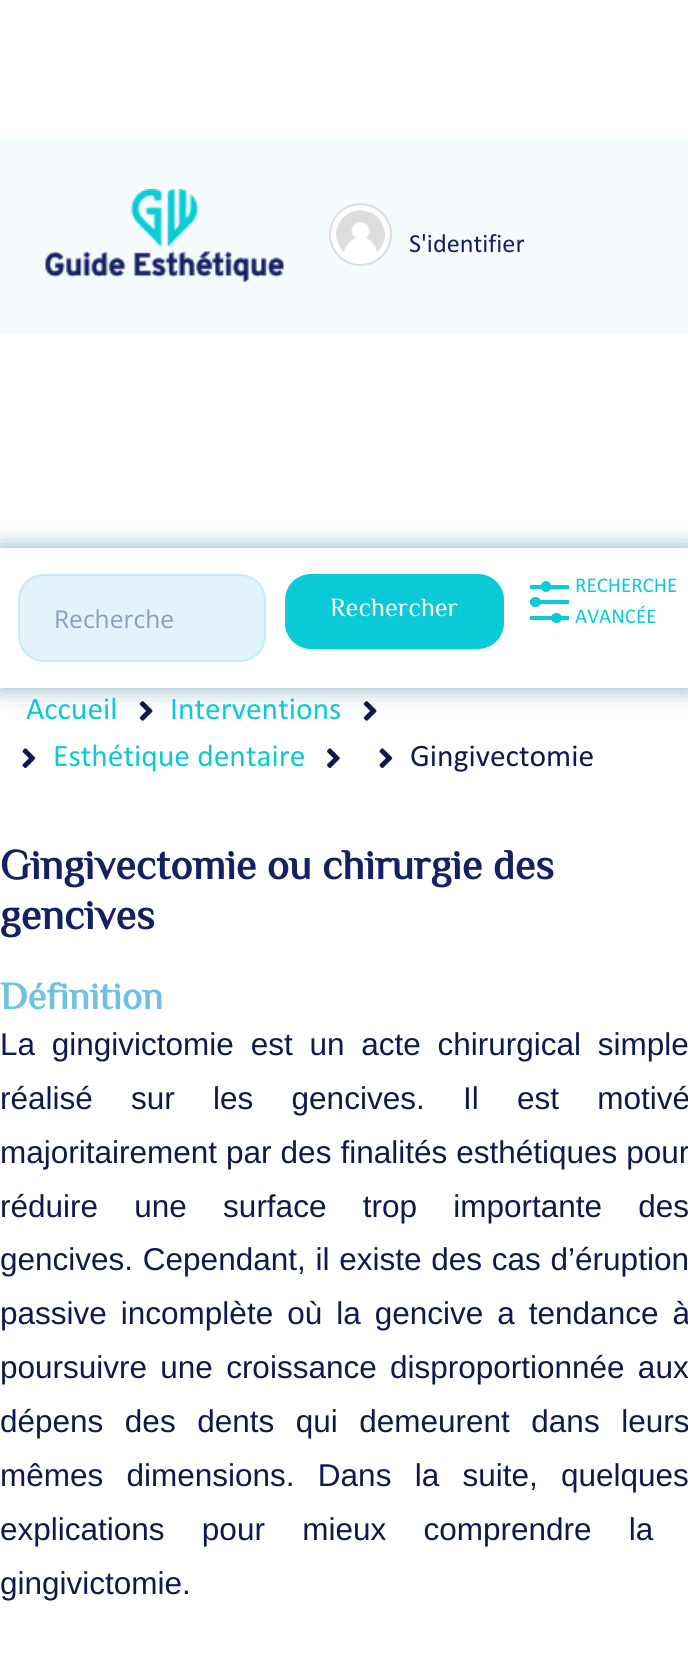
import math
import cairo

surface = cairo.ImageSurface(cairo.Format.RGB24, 688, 1655)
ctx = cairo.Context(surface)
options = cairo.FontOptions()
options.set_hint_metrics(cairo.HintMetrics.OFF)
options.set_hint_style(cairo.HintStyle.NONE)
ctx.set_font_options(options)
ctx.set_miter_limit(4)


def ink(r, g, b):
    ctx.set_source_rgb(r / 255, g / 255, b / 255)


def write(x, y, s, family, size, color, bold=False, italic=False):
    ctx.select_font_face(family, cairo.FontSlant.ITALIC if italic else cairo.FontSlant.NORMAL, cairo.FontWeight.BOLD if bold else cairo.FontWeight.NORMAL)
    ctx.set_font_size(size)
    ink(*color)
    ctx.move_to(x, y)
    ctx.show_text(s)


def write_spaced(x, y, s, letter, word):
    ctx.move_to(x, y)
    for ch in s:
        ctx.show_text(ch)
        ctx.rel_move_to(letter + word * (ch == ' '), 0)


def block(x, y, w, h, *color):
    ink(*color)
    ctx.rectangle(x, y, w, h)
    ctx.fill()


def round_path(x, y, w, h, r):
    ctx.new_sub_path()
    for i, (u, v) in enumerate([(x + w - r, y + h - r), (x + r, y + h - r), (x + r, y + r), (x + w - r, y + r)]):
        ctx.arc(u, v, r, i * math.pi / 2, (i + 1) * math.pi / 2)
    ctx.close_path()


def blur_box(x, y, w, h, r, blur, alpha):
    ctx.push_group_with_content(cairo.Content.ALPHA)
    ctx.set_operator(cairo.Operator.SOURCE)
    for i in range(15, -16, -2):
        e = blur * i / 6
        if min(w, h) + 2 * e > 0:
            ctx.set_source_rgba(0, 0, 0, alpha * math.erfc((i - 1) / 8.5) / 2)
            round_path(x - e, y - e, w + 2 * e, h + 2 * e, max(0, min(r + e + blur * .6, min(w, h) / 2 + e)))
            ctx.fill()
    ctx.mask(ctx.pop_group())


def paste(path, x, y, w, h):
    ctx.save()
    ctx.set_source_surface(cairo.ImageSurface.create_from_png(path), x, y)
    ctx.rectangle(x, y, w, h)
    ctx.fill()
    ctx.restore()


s1 = dict(family="Calibri", size=26.25, color=(20, 32, 99))
s2 = dict(family="Open Sans", size=24.5, color=(140, 156, 186))
s3 = dict(family="El Messiri", size=26.25, color=(255, 255, 255))
s4 = dict(family="Calibri", size=21, color=(10, 202, 215))
s5 = dict(family="El Messiri", size=42, color=(20, 32, 99), bold=True)
s6 = dict(family="El Messiri", size=38.5, color=(110, 193, 228), bold=True)
s7 = dict(family="Liberation Sans", size=31.5, color=(16, 25, 76))
s8 = dict(family="Calibri", size=31.5, color=(10, 202, 215))
s9 = dict(family="Calibri", size=31.5, color=(16, 25, 76))

ink(255, 255, 255)
ctx.paint()
block(0, 137, 688, 197, 246, 251, 254)
paste("pic1.png", 45, 189, 239, 93)
ink(255, 255, 255)
ctx.arc(360.5, 234.5, 30.5, 0, 2 * math.pi)
ctx.fill_preserve()
ink(221, 221, 221)
ctx.stroke()
paste("pic2.png", 336, 210, 49, 42)
write(409, 252, "S'identifier", **s1)
ink(0, 87, 124)
blur_box(0, 548, 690, 140, 0, 11.5, 0.48)
block(0, 548, 688, 140, 255, 255, 255)
ink(224, 244, 249)
round_path(19, 575, 246, 86, 25)
ctx.fill_preserve()
ink(200, 235, 244)
ctx.stroke()
write(54, 628, "Recherche", **s2)
ink(10, 202, 215)
round_path(285, 574, 219, 75, 26)
ctx.fill()
write(330, 616, "Rechercher", **s3)
block(530, 585, 39, 4, 10, 202, 215)
round_path(543, 583, 6, 7, 3)
ctx.fill_preserve()
ctx.set_line_width(4)
ctx.stroke()
block(530, 600, 39, 4, 10, 202, 215)
round_path(532, 599, 7, 6, 3)
ctx.fill_preserve()
ctx.stroke()
block(530, 616, 39, 4, 10, 202, 215)
round_path(553, 615, 7, 6, 3)
ctx.fill_preserve()
ctx.stroke()
write(575, 592, "RECHERCHE", **s4)
write(575, 623, "AVANCÉE", **s4)
write(0, 879, "Gingivectomie ou chirurgie des", **s5)
write(0, 929, "gencives", **s5)
write(0, 1009, "Définition", **s6)
ctx.select_font_face("Liberation Sans")
ctx.set_font_size(31.5)
ink(16, 25, 76)
write_spaced(0, 1055, "La gingivictomie est un acte chirurgical simple", 0, 8)
write_spaced(0, 1109, "réalisé sur les gencives. Il est motivé", 0, 29.5)
write_spaced(0, 1163, "majoritairement par des finalités esthétiques pour", 0, 0.25)
write_spaced(0, 1217, "réduire une surface trop importante des", 0, 27.5)
write_spaced(0, 1270, "gencives. Cependant, il existe des cas d’éruption", 0, 1)
write_spaced(0, 1324, "passive incomplète où la gencive a tendance à", 0, 5.25)
write_spaced(0, 1378, "poursuivre une croissance disproportionnée aux", 0, 4.5)
write_spaced(0, 1432, "dépens des dents qui demeurent dans leurs", 0, 12.75)
write_spaced(0, 1486, "mêmes dimensions. Dans la suite, quelques", 0, 14.5)
write_spaced(0, 1540, "explications pour mieux comprendre la", 0, 28.5)
write(0, 1594, "gingivictomie.", **s7)
write(26, 719, "Accueil", **s8)
paste("pic3.png", 139, 701, 14, 20)
write(170, 719, "Interventions", **s8)
paste("pic3.png", 363, 701, 14, 20)
paste("pic4.png", 22, 748, 14, 20)
write(53, 766, "Esthétique dentaire", **s8)
paste("pic5.png", 327, 748, 13, 20)
paste("pic4.png", 379, 748, 14, 20)
write(410, 766, "Gingivectomie", **s9)
surface.write_to_png("screenshot.png")
